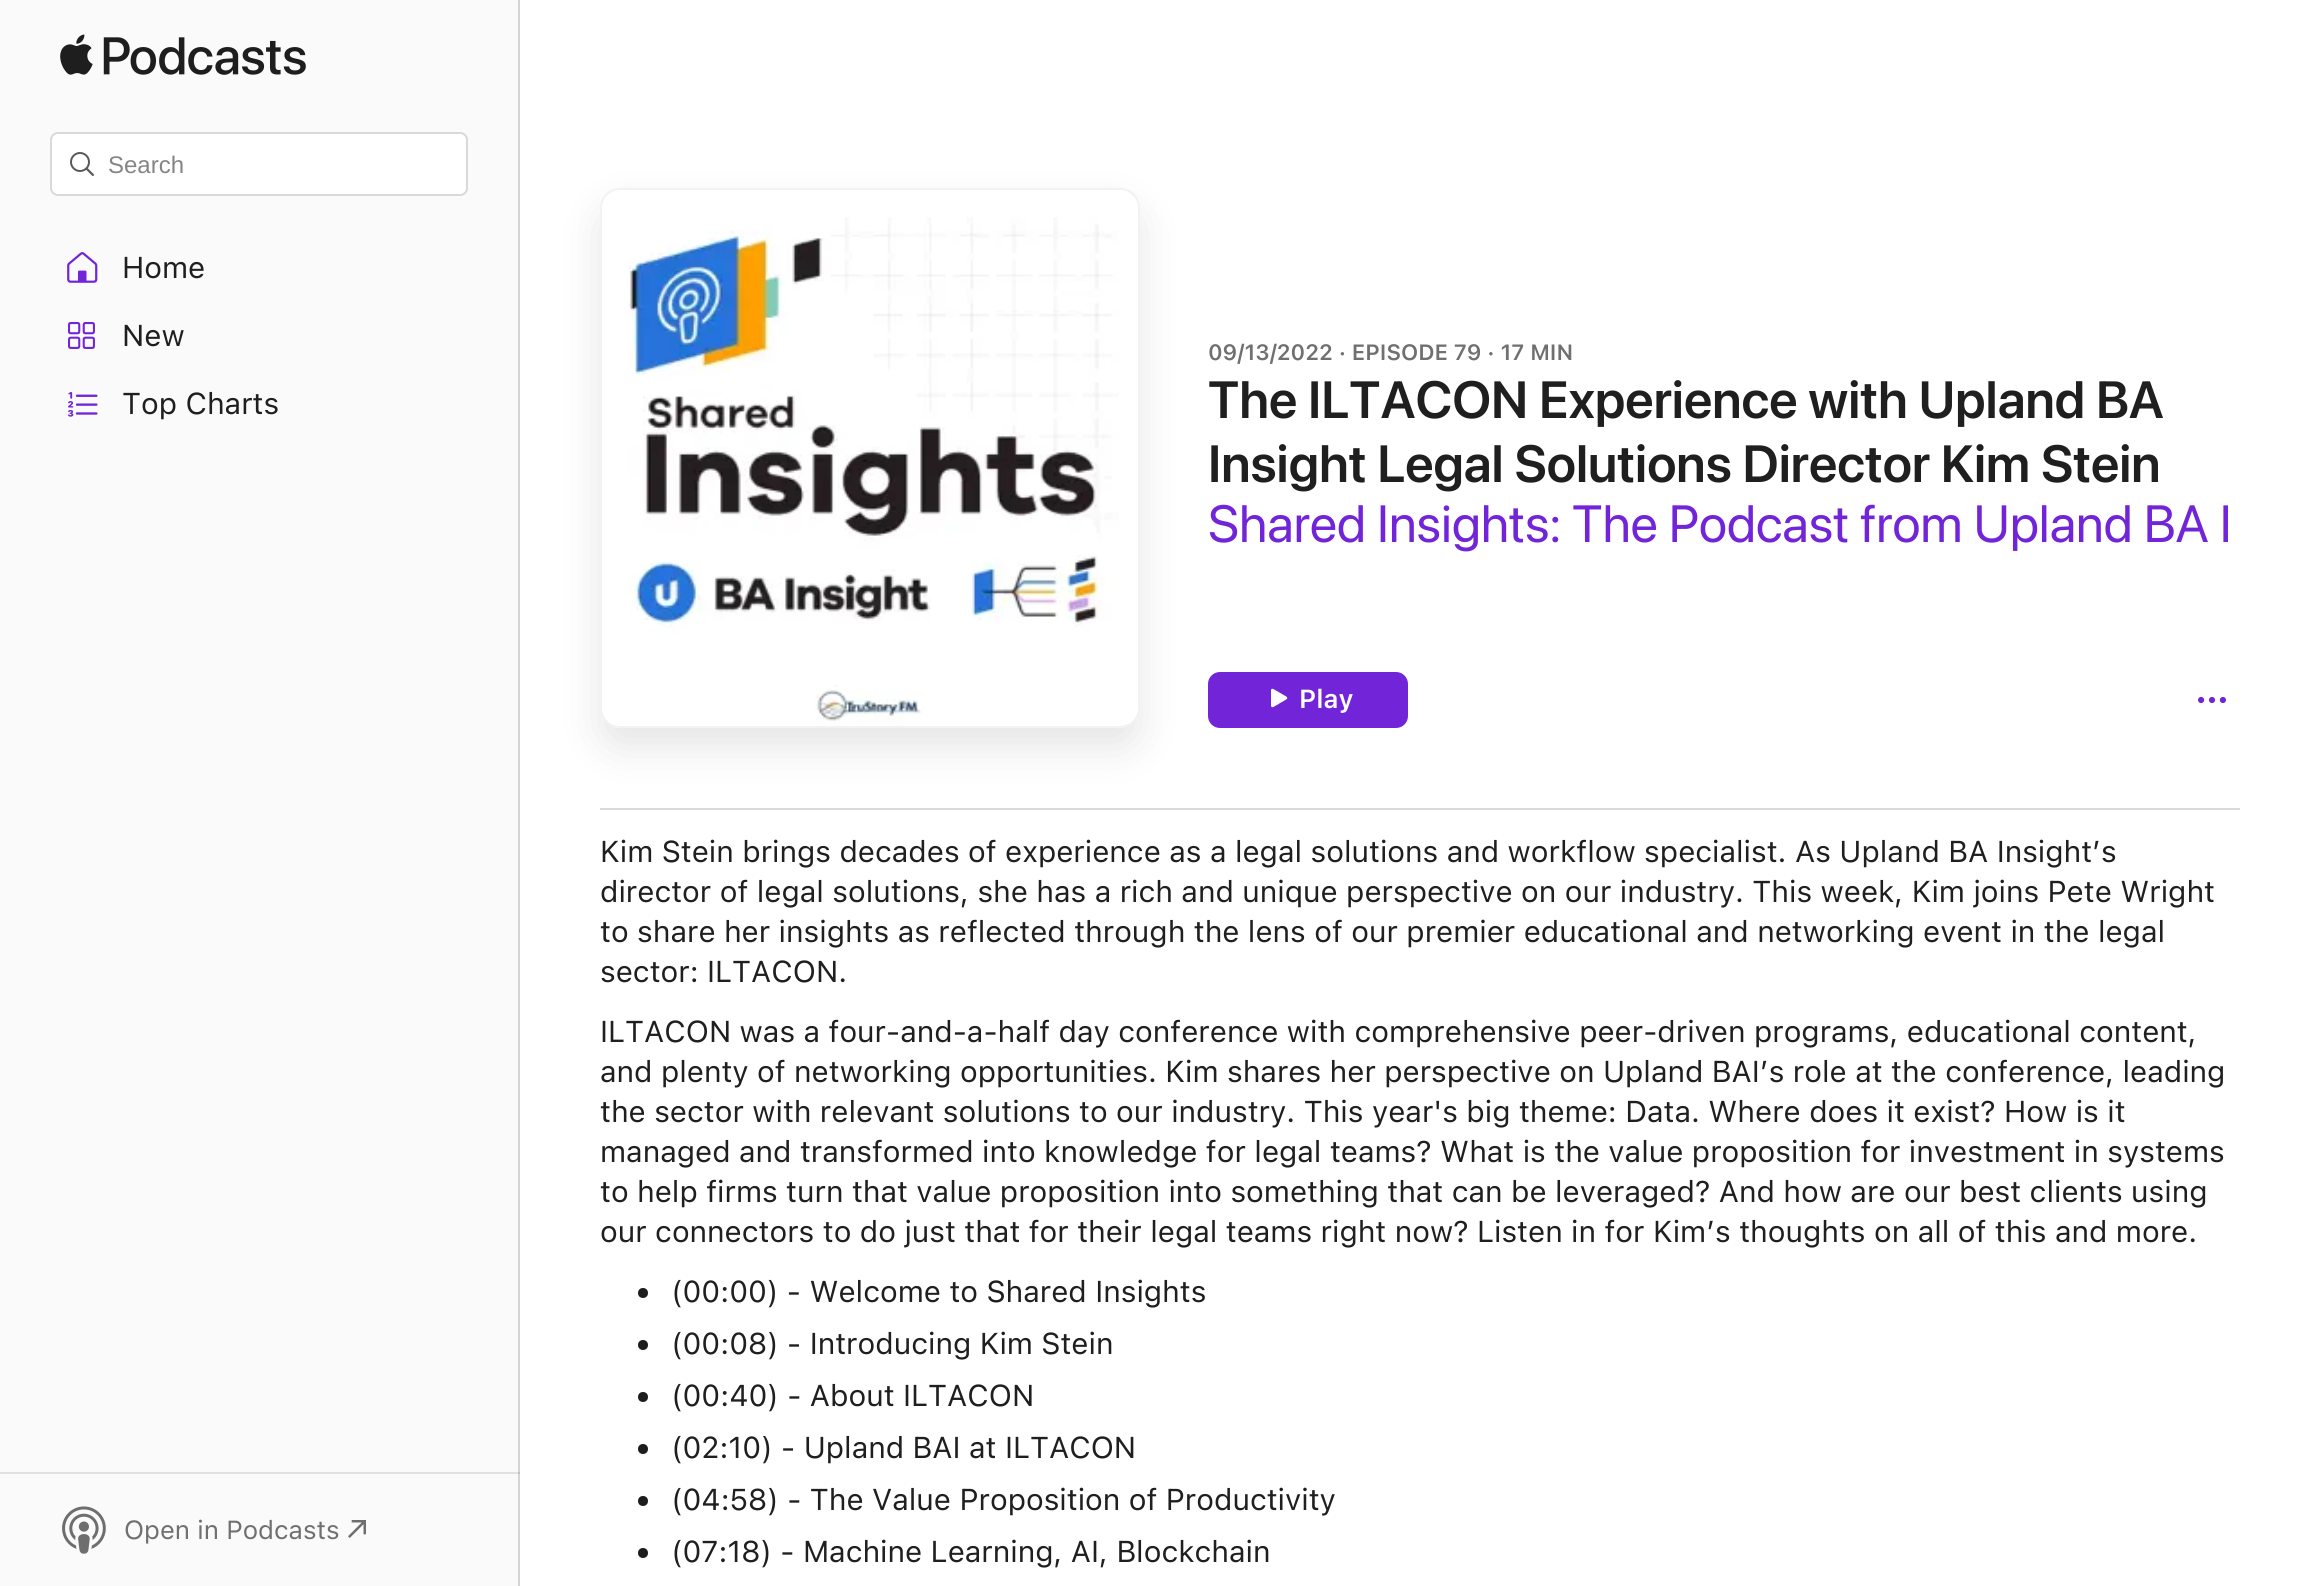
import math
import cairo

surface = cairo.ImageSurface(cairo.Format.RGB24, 2320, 1586)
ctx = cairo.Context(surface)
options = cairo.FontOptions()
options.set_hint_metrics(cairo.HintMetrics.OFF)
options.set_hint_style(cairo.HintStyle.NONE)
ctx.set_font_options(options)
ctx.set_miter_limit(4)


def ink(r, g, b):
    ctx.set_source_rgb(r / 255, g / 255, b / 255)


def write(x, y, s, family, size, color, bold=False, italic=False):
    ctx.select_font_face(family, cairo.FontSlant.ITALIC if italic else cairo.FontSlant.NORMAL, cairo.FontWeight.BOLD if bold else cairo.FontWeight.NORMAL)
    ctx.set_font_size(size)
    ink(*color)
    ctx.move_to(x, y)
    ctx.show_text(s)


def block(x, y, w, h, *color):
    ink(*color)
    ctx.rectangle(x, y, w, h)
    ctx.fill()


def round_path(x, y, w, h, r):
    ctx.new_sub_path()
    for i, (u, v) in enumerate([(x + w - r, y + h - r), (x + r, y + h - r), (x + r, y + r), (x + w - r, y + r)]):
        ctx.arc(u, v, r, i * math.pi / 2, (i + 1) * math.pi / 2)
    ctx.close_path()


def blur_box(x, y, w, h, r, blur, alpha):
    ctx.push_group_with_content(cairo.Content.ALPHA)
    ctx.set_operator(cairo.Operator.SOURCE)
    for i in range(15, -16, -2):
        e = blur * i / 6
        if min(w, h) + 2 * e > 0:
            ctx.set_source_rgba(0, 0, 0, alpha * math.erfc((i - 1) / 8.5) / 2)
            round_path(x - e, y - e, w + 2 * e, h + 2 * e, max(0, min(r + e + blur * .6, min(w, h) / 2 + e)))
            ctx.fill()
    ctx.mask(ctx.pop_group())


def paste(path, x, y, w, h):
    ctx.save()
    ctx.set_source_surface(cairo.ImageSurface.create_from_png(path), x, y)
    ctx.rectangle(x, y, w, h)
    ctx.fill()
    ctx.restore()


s1 = dict(family="Liberation Sans", size=24, color=(133, 133, 133))
s2 = dict(family="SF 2", size=30, color=(31, 31, 31))
s3 = dict(family="SF 2", size=26, color=(112, 112, 112))
s4 = dict(family="SF SemiBold", size=22, color=(112, 112, 112))
s5 = dict(family="SF 2 SemiBold", size=52, color=(31, 31, 31))
s6 = dict(family="SF", size=52, color=(114, 36, 216))
s7 = dict(family="SF SemiBold", size=26, color=(255, 255, 255))

ink(255, 255, 255)
ctx.paint()
block(0, 0, 518, 1586, 250, 250, 250)
block(0, 1472, 520, 2, 225, 225, 225)
block(518, 0, 2, 1586, 213, 213, 213)
block(518, 1472, 2, 2, 192, 192, 192)
paste("pic1.png", 60, 34, 246, 41)
ink(255, 255, 255)
round_path(51, 133, 416, 62, 7)
ctx.fill_preserve()
ink(217, 217, 217)
ctx.stroke()
paste("pic2.png", 70, 152, 24, 24)
write(108, 173, "Search", **s1)
paste("pic3.png", 67, 252, 31, 31)
write(122, 278, "Home", **s2)
paste("pic4.png", 68, 322, 27, 27)
write(122, 346, "New", **s2)
paste("pic5.png", 68, 392, 30, 25)
write(122, 414, "Top Charts", **s2)
paste("pic6.png", 62, 1506, 44, 48)
write(124, 1539, "Open in Podcasts", **s3)
paste("pic7.png", 348, 1520, 18, 18)
block(600, 808, 1640, 2, 217, 217, 217)
ctx.save()
ctx.set_fill_rule(cairo.FillRule.EVEN_ODD)
ctx.new_path()
ctx.move_to(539, 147)
ctx.line_to(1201, 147)
ctx.line_to(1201, 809)
ctx.line_to(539, 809)
ctx.close_path()
ctx.move_to(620, 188)
ctx.line_to(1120, 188)
ctx.curve_to(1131, 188, 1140, 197, 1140, 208)
ctx.line_to(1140, 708)
ctx.curve_to(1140, 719, 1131, 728, 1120, 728)
ctx.line_to(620, 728)
ctx.curve_to(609, 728, 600, 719, 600, 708)
ctx.line_to(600, 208)
ctx.curve_to(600, 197, 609, 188, 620, 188)
ctx.close_path()
ctx.clip()
ink(0, 0, 0)
blur_box(600, 208, 540, 540, 20, 20, 0.1)
ctx.restore()
paste("pic8.png", 612, 217, 516, 511)
round_path(601, 189, 538, 538, 19)
ctx.set_source_rgba(0.502, 0.502, 0.502, 0.1)
ctx.stroke()
write(1208, 360, "09/13/2022 · EPISODE 79 · 17 MIN", **s4)
write(1208, 418, "The ILTACON Experience with Upland BA", **s5)
write(1208, 482, "Insight Legal Solutions Director Kim Stein", **s5)
write(1208, 542, "Shared Insights: The Podcast from Upland BA I", **s6)
round_path(1208, 672, 200, 56, 12)
ctx.fill()
paste("pic9.png", 1271, 688, 17, 20)
write(1299, 708, "Play", **s7)
paste("pic10.png", 2198, 696, 28, 8)
write(600, 862, "Kim Stein brings decades of experience as a legal solutions and workflow specialist. As Upland BA Insight’s", **s2)
write(600, 902, "director of legal solutions, she has a rich and unique perspective on our industry. This week, Kim joins Pete Wright", **s2)
write(600, 942, "to share her insights as reflected through the lens of our premier educational and networking event in the legal", **s2)
write(600, 982, "sector: ILTACON.", **s2)
write(600, 1042, "ILTACON was a four-and-a-half day conference with comprehensive peer-driven programs, educational content,", **s2)
write(600, 1082, "and plenty of networking opportunities. Kim shares her perspective on Upland BAI’s role at the conference, leading", **s2)
write(600, 1122, "the sector with relevant solutions to our industry. This year's big theme: Data. Where does it exist? How is it", **s2)
write(600, 1162, "managed and transformed into knowledge for legal teams? What is the value proposition for investment in systems", **s2)
write(600, 1202, "to help firms turn that value proposition into something that can be leveraged? And how are our best clients using", **s2)
write(600, 1242, "our connectors to do just that for their legal teams right now? Listen in for Kim’s thoughts on all of this and more.", **s2)
ink(29, 29, 31)
ctx.new_path()
ctx.arc(643, 1293, 5, 0, 2 * math.pi)
ctx.fill()
write(671, 1302, "(00:00) - Welcome to Shared Insights", **s2)
ink(29, 29, 31)
ctx.new_path()
ctx.arc(643, 1345, 5, 0, 2 * math.pi)
ctx.fill()
write(671, 1354, "(00:08) - Introducing Kim Stein", **s2)
ink(29, 29, 31)
ctx.new_path()
ctx.arc(643, 1397, 5, 0, 2 * math.pi)
ctx.fill()
write(671, 1406, "(00:40) - About ILTACON", **s2)
ink(29, 29, 31)
ctx.new_path()
ctx.arc(643, 1449, 5, 0, 2 * math.pi)
ctx.fill()
write(671, 1458, "(02:10) - Upland BAI at ILTACON", **s2)
ink(29, 29, 31)
ctx.new_path()
ctx.arc(643, 1501, 5, 0, 2 * math.pi)
ctx.fill()
write(671, 1510, "(04:58) - The Value Proposition of Productivity", **s2)
ink(29, 29, 31)
ctx.new_path()
ctx.arc(643, 1553, 5, 0, 2 * math.pi)
ctx.fill()
write(671, 1562, "(07:18) - Machine Learning, AI, Blockchain", **s2)
surface.write_to_png("screenshot.png")
